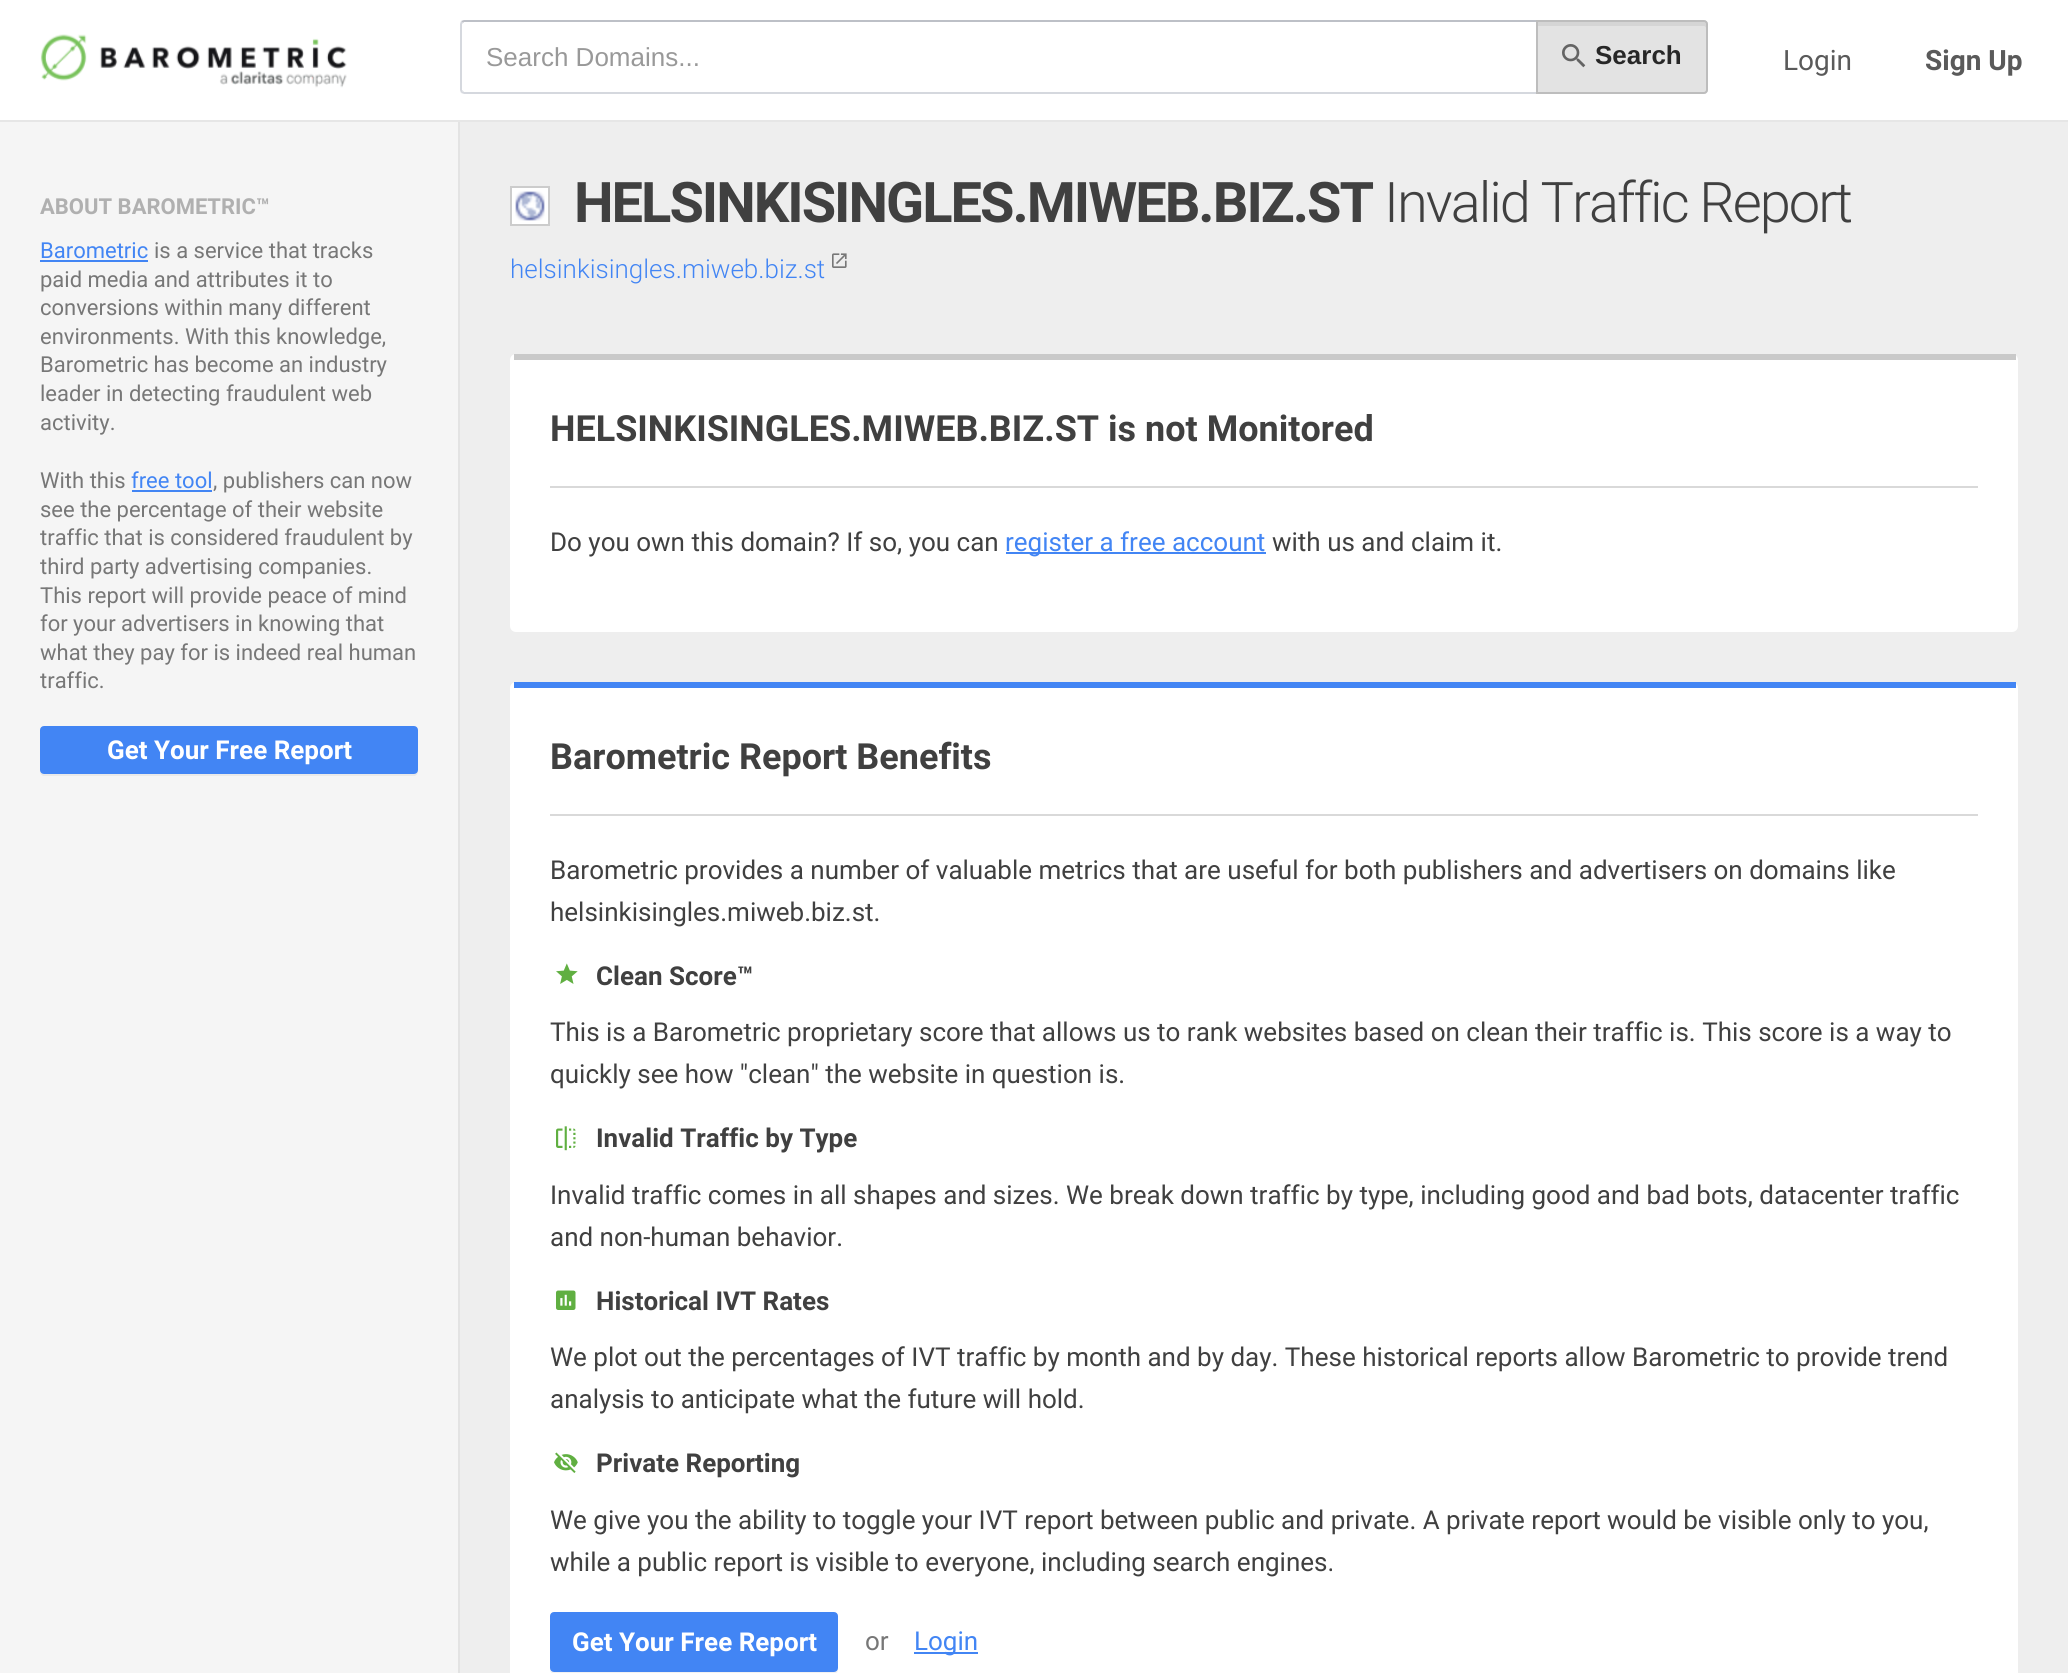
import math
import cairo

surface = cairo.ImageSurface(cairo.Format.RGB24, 2068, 1673)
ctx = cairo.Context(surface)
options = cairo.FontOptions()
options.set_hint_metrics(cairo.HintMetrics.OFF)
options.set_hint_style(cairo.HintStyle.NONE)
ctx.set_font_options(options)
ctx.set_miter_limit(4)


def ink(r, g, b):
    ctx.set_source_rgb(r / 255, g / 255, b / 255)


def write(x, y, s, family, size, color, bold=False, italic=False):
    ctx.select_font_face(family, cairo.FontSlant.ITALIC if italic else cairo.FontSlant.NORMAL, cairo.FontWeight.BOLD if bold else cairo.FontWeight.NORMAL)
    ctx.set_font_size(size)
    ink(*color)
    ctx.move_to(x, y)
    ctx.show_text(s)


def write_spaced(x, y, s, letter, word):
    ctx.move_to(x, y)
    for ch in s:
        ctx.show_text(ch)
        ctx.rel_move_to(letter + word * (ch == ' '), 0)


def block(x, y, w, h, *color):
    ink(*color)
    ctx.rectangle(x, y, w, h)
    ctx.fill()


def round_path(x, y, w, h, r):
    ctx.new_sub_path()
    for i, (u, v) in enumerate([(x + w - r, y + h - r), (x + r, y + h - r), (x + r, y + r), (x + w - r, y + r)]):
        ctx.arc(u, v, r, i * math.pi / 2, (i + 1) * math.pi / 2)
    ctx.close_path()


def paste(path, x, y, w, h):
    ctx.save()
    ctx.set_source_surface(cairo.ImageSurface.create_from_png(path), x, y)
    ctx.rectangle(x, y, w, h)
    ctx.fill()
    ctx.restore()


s1 = dict(family="Liberation Sans", size=26, color=(153, 153, 153))
s2 = dict(family="Liberation Sans", size=26, color=(39, 39, 39), bold=True)
s3 = dict(family="Roboto", size=28, color=(90, 90, 90))
s4 = dict(family="Roboto", size=28, color=(90, 90, 90), bold=True)
s5 = dict(family="Roboto", size=22, color=(176, 176, 176), bold=True)
s6 = dict(family="Roboto", size=22, color=(66, 133, 244))
s7 = dict(family="Roboto", size=22, color=(119, 119, 119))
s8 = dict(family="Roboto", size=26, color=(255, 255, 255), bold=True)
s9 = dict(family="Roboto Light", size=26, color=(66, 133, 244))
s10 = dict(family="Roboto", size=36, color=(64, 64, 64), bold=True)
s11 = dict(family="Roboto", size=26, color=(64, 64, 64))
s12 = dict(family="Roboto", size=26, color=(66, 133, 244))
s13 = dict(family="Roboto", size=26, color=(64, 64, 64), bold=True)
s14 = dict(family="Roboto", size=26, color=(119, 119, 119))

ink(238, 238, 238)
ctx.paint()
block(0, 0, 2068, 120, 255, 255, 255)
block(0, 120, 2068, 2, 230, 230, 230)
paste("pic1.png", 40, 34, 307, 54)
ink(189, 192, 199)
ctx.new_path()
ctx.move_to(464, 20)
ctx.line_to(461, 21)
ctx.line_to(463, 23)
ctx.line_to(464, 22)
ctx.line_to(1536, 22)
ctx.line_to(1538, 20)
ctx.close_path()
ctx.fill()
ink(213, 216, 222)
ctx.new_path()
ctx.move_to(1538, 94)
ctx.line_to(1536, 92)
ctx.line_to(464, 92)
ctx.line_to(463, 91)
ctx.line_to(461, 93)
ctx.line_to(464, 94)
ctx.close_path()
ctx.fill()
ctx.new_path()
ctx.move_to(460, 24)
ctx.line_to(460, 90)
ctx.line_to(461, 93)
ctx.line_to(463, 91)
ctx.line_to(462, 90)
ctx.line_to(462, 24)
ctx.line_to(463, 23)
ctx.line_to(461, 21)
ctx.close_path()
ctx.fill()
write(486, 66, "Search Domains...", **s1)
ink(227, 227, 227)
ctx.new_path()
ctx.move_to(1536, 20)
ctx.line_to(1704, 20)
ctx.curve_to(1706, 20, 1708, 22, 1708, 24)
ctx.line_to(1708, 90)
ctx.curve_to(1708, 92, 1706, 94, 1704, 94)
ctx.line_to(1536, 94)
ctx.close_path()
ctx.fill()
ink(213, 213, 213)
ctx.new_path()
ctx.move_to(1538, 26)
ctx.line_to(1704, 26)
ctx.curve_to(1705, 26, 1706, 27, 1706, 28)
ctx.line_to(1706, 24)
ctx.curve_to(1706, 23, 1705, 22, 1704, 22)
ctx.line_to(1538, 22)
ctx.close_path()
ctx.fill()
ctx.new_path()
ctx.move_to(1537, 21)
ctx.line_to(1704, 21)
ctx.curve_to(1705.5, 21, 1707, 22.5, 1707, 24)
ctx.line_to(1707, 90)
ctx.curve_to(1707, 91.5, 1705.5, 93, 1704, 93)
ctx.line_to(1537, 93)
ctx.close_path()
ink(189, 189, 189)
ctx.stroke()
paste("pic2.png", 1562, 44, 24, 24)
write(1595, 64, "Search", **s2)
write(1783, 70, "Login", **s3)
write(1925, 70, "Sign Up", **s4)
block(0, 122, 458, 1551, 245, 245, 245)
block(458, 122, 2, 1551, 227, 227, 227)
write(40, 214, "ABOUT BAROMETRIC™", **s5)
write(40, 258, "Barometric", **s6)
block(40, 260, 108, 2, 66, 133, 244)
write(154, 258, "is a service that tracks", **s7)
write(40, 287, "paid media and attributes it to", **s7)
write(40, 315, "conversions within many different", **s7)
write(40, 344, "environments. With this knowledge,", **s7)
write(40, 372, "Barometric has become an industry", **s7)
write(40, 401, "leader in detecting fraudulent web", **s7)
write(40, 430, "activity.", **s7)
write(40, 488, "With this", **s7)
write(131, 488, "free tool", **s6)
block(132, 490, 80, 2, 66, 133, 244)
write(213, 488, ", publishers can now", **s7)
write(40, 517, "see the percentage of their website", **s7)
write(40, 545, "traffic that is considered fraudulent by", **s7)
write(40, 574, "third party advertising companies.", **s7)
write(40, 603, "This report will provide peace of mind", **s7)
write(40, 631, "for your advertisers in knowing that", **s7)
write(40, 660, "what they pay for is indeed real human", **s7)
write(40, 688, "traffic.", **s7)
ink(233, 233, 233)
ctx.new_path()
ctx.move_to(40, 770)
ctx.line_to(40, 772)
ctx.curve_to(40, 774, 42, 776, 44, 776)
ctx.line_to(414, 776)
ctx.curve_to(416, 776, 418, 774, 418, 772)
ctx.line_to(418, 770)
ctx.curve_to(418, 772, 416, 774, 414, 774)
ctx.line_to(44, 774)
ctx.curve_to(42, 774, 40, 772, 40, 770)
ctx.close_path()
ctx.fill()
ink(66, 133, 244)
round_path(41, 727, 376, 46, 3)
ctx.fill_preserve()
ctx.stroke()
write(107, 759, "Get Your Free Report", **s8)
ctx.rectangle(511, 187, 38, 38)
ctx.fill_preserve()
ink(204, 204, 204)
ctx.stroke()
paste("pic3.png", 515, 191, 30, 30)
ctx.set_font_size(56)
ink(64, 64, 64)
write_spaced(574, 222, "HELSINKISINGLES.MIWEB.BIZ.ST", -2, 0)
ctx.select_font_face("Roboto Light")
write_spaced(1384, 222, "Invalid Traffic Report", -2, 0)
write(510, 278, "helsinkisingles.miweb.biz.st", **s9)
paste("pic4.png", 832, 253, 15, 15)
ink(255, 255, 255)
round_path(510, 354, 1508, 278, 6)
ctx.fill()
block(514, 354, 1502, 6, 201, 201, 201)
block(550, 486, 1428, 2, 217, 217, 217)
write(550, 441, "HELSINKISINGLES.MIWEB.BIZ.ST is not Monitored", **s10)
write(550, 551, "Do you own this domain? If so, you can", **s11)
block(1006, 552, 260, 2, 66, 133, 244)
write(1005, 551, "register a free account", **s12)
write(1272, 551, "with us and claim it.", **s11)
ink(255, 255, 255)
round_path(510, 682, 1508, 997, 6)
ctx.fill()
block(514, 682, 1502, 6, 66, 133, 244)
block(550, 814, 1428, 2, 217, 217, 217)
write(550, 769, "Barometric Report Benefits", **s10)
write(550, 879, "Barometric provides a number of valuable metrics that are useful for both publishers and advertisers on domains like", **s11)
write(550, 921, "helsinkisingles.miweb.biz.st.", **s11)
paste("pic5.png", 556, 963, 22, 21)
write(596, 985, "Clean Score™", **s13)
write(550, 1041, "This is a Barometric proprietary score that allows us to rank websites based on clean their traffic is. This score is a way to", **s11)
write(550, 1083, "quickly see how \"clean\" the website in question is.", **s11)
paste("pic6.png", 556, 1126, 20, 25)
write(596, 1147, "Invalid Traffic by Type", **s13)
write(550, 1204, "Invalid traffic comes in all shapes and sizes. We break down traffic by type, including good and bad bots, datacenter traffic", **s11)
write(550, 1246, "and non-human behavior.", **s11)
paste("pic7.png", 556, 1290, 20, 20)
write(596, 1310, "Historical IVT Rates", **s13)
write(550, 1366, "We plot out the percentages of IVT traffic by month and by day. These historical reports allow Barometric to provide trend", **s11)
write(550, 1408, "analysis to anticipate what the future will hold.", **s11)
paste("pic8.png", 554, 1452, 24, 21)
write(596, 1472, "Private Reporting", **s13)
write(550, 1529, "We give you the ability to toggle your IVT report between public and private. A private report would be visible only to you,", **s11)
write(550, 1571, "while a public report is visible to everyone, including search engines.", **s11)
ink(242, 242, 242)
ctx.new_path()
ctx.move_to(550, 1668)
ctx.line_to(550, 1670)
ctx.curve_to(550, 1672, 552, 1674, 554, 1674)
ctx.line_to(834, 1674)
ctx.curve_to(836, 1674, 838, 1672, 838, 1670)
ctx.line_to(838, 1668)
ctx.curve_to(838, 1670, 836, 1672, 834, 1672)
ctx.line_to(554, 1672)
ctx.curve_to(552, 1672, 550, 1670, 550, 1668)
ctx.close_path()
ctx.fill()
ink(66, 133, 244)
round_path(551, 1613, 286, 58, 3)
ctx.fill_preserve()
ctx.stroke()
write(572, 1651, "Get Your Free Report", **s8)
write(865, 1650, "or", **s14)
block(914, 1652, 64, 2, 66, 133, 244)
write(914, 1650, "Login", **s12)
surface.write_to_png("screenshot.png")
